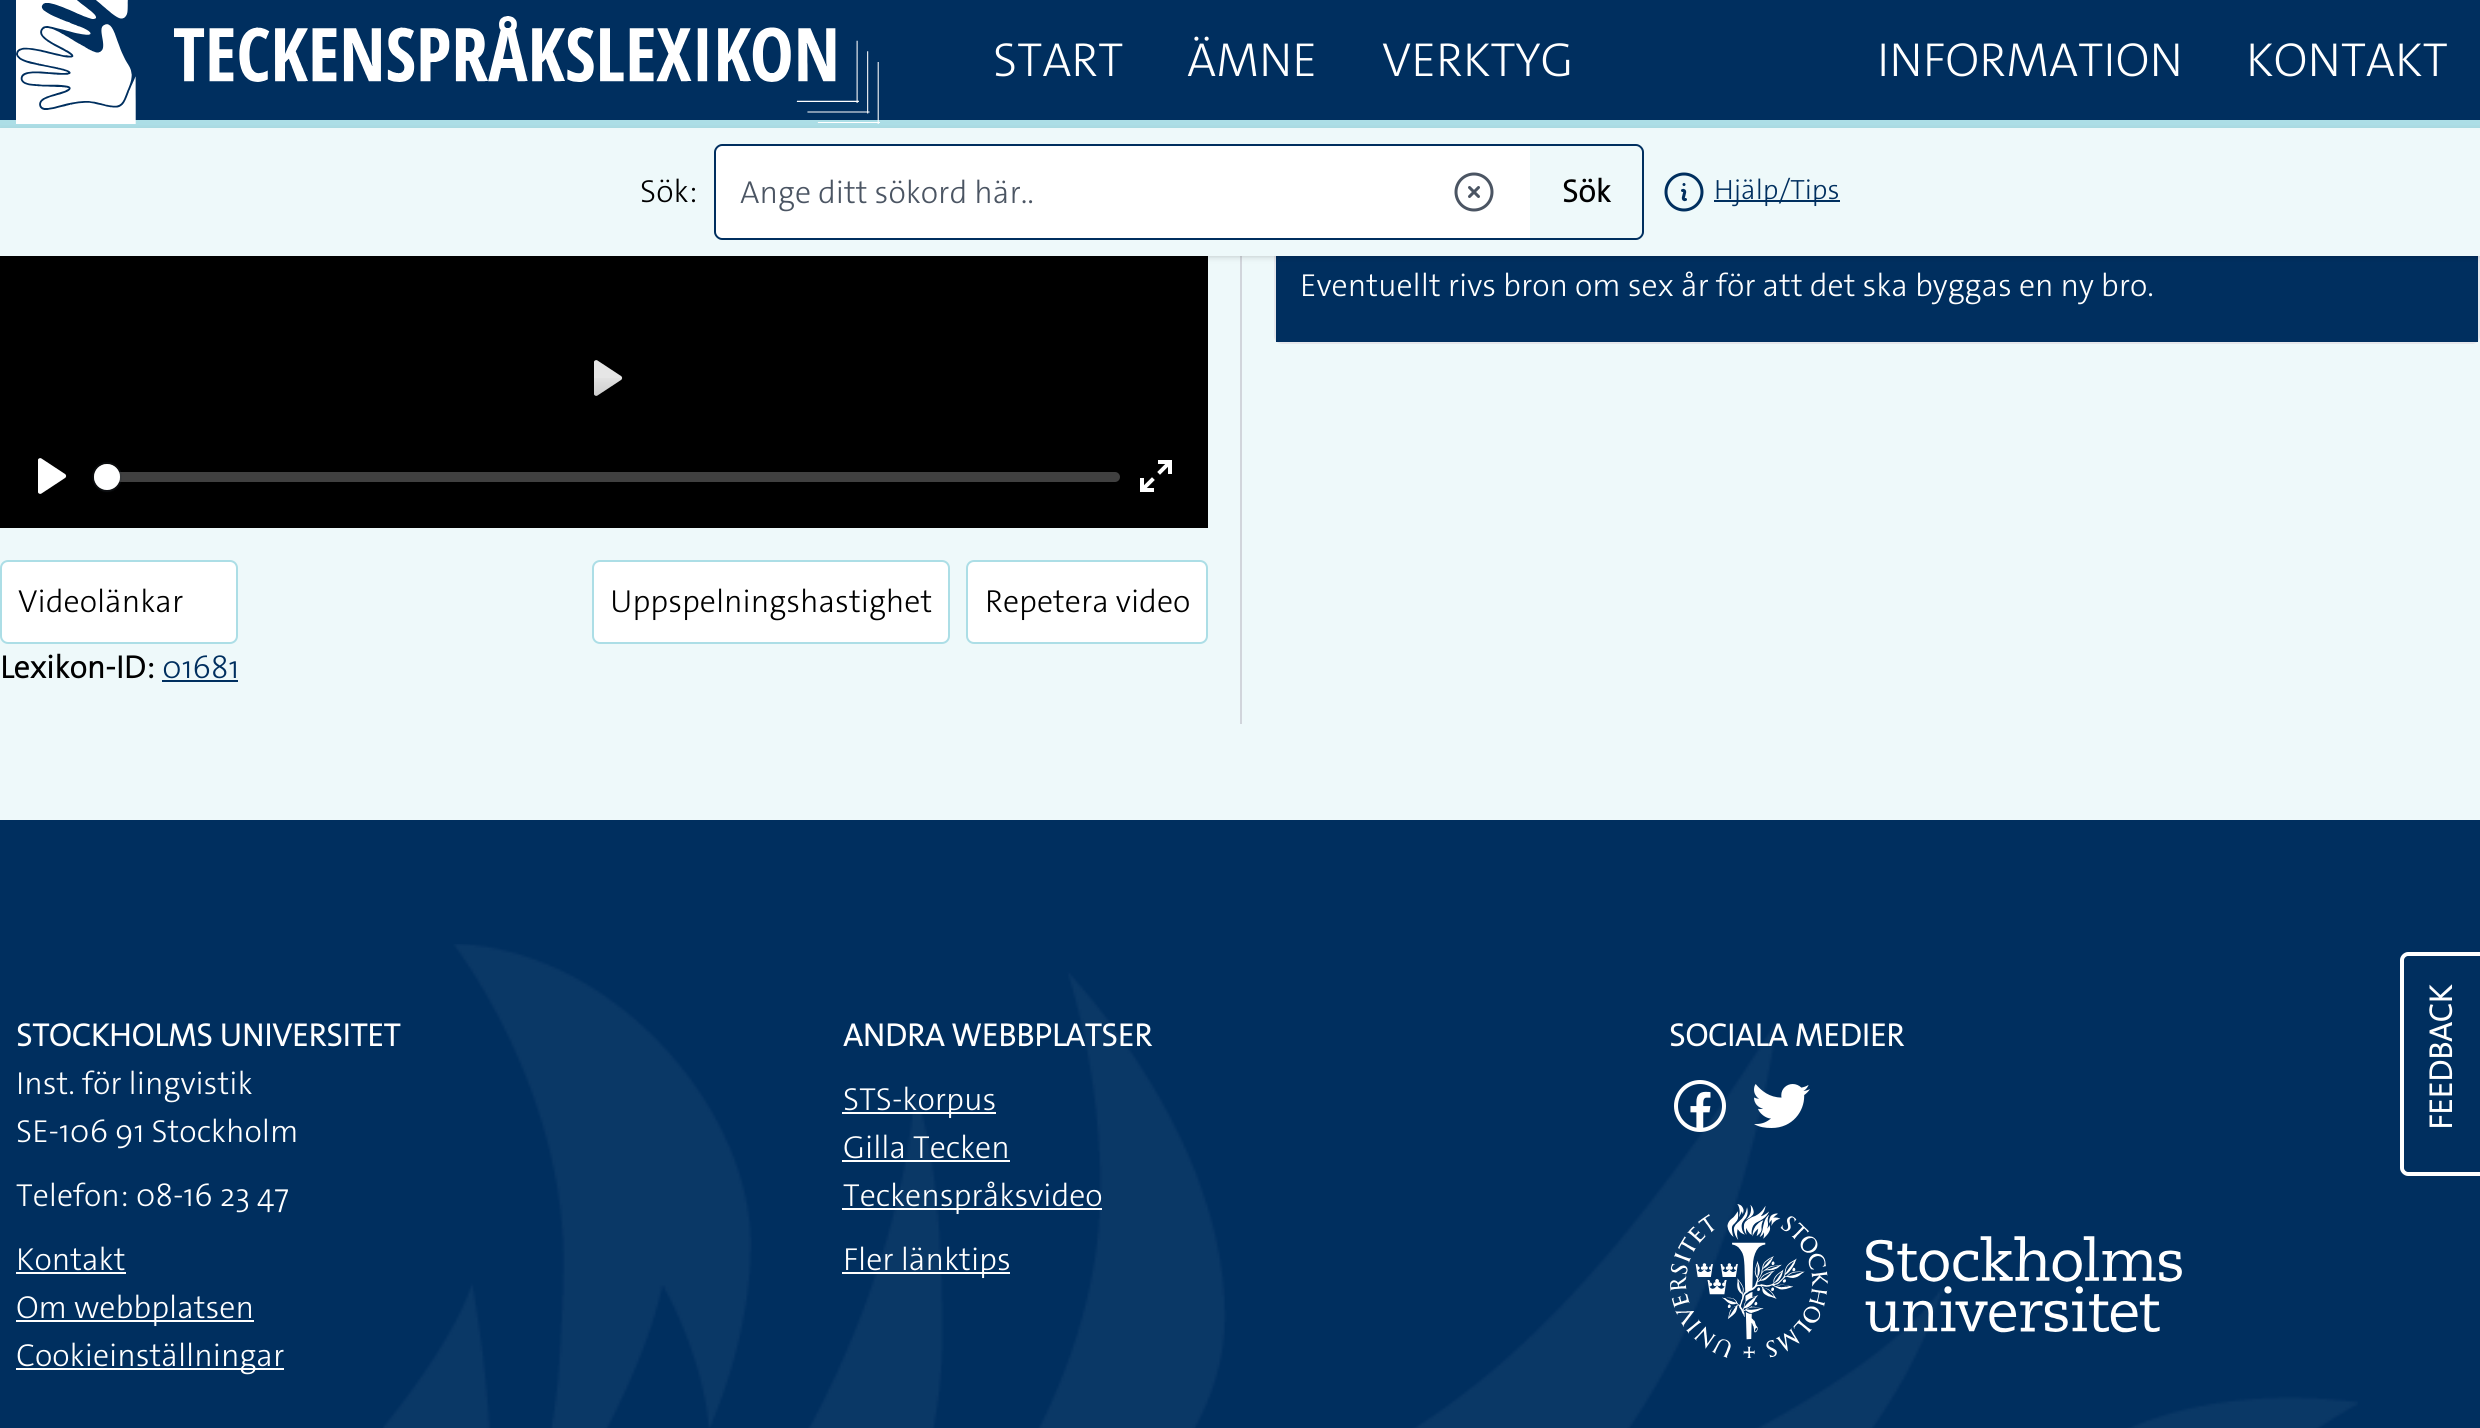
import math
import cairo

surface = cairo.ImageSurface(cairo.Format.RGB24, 2480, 1428)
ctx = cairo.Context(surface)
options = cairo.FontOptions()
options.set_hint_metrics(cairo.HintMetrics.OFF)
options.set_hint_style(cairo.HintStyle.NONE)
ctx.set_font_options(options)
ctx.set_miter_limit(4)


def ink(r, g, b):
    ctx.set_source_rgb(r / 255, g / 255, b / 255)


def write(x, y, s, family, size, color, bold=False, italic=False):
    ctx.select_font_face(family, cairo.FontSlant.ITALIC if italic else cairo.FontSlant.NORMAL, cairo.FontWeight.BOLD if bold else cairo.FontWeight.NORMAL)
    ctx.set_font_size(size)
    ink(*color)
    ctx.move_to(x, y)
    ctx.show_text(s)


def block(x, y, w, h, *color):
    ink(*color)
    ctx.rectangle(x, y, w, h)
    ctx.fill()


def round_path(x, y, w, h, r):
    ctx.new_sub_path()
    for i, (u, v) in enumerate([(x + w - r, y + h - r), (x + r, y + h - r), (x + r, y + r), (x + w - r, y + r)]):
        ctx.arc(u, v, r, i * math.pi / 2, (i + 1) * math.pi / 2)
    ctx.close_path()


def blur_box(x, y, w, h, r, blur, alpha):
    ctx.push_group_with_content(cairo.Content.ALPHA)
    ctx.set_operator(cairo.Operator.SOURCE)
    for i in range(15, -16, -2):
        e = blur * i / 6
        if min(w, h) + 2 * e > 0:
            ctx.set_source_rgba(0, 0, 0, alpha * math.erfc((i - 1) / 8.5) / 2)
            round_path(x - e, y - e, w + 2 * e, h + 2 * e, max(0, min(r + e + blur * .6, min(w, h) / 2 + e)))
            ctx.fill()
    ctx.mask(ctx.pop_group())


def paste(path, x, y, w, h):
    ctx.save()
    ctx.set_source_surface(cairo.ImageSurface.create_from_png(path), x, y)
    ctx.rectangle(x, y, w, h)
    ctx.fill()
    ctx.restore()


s1 = dict(family="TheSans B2 Light", size=48, color=(255, 255, 255))
s2 = dict(family="TheSans B2 Light", size=32, color=(0, 0, 0))
s3 = dict(family="TheSans B2 Light", size=32, color=(75, 85, 99))
s4 = dict(family="TheSans B2", size=32, color=(0, 0, 0), bold=True)
s5 = dict(family="TheSans B2 Light", size=28, color=(0, 47, 95))
s6 = dict(family="TheSans B2 Light", size=32, color=(255, 255, 255))
s7 = dict(family="TheSans B2 Light", size=32, color=(0, 47, 95))
s8 = dict(family="TheSans B2", size=32, color=(255, 255, 255), bold=True)

ink(238, 249, 250)
ctx.paint()
block(0, 0, 2480, 120, 0, 47, 95)
block(0, 120, 2480, 8, 172, 222, 230)
paste("pic1.png", 16, 0, 864, 124)
write(993, 76, "START", **s1)
write(1187, 76, "ÄMNE", **s1)
write(1382, 76, "VERKTYG", **s1)
write(1877, 76, "INFORMATION", **s1)
write(2246, 76, "KONTAKT", **s1)
block(1240, 256, 2, 468, 209, 213, 219)
round_path(1275, 229, 1204, 114, 7)
ink(229, 231, 235)
ctx.stroke()
block(1276, 256, 1202, 86, 0, 47, 95)
block(0, 256, 1208, 272, 0, 0, 0)
ink(0, 0, 0)
blur_box(2, 132, 2476, 124, 0, 2, 0.1)
blur_box(0, 130, 2480, 128, 0, 3, 0.1)
block(0, 128, 2480, 128, 238, 249, 250)
write(640, 202, "Sök:", **s2)
ink(255, 255, 255)
ctx.new_path()
ctx.move_to(722, 146)
ctx.line_to(1530, 146)
ctx.line_to(1530, 238)
ctx.line_to(722, 238)
ctx.curve_to(718.5, 238, 716, 235.5, 716, 232)
ctx.line_to(716, 152)
ctx.curve_to(716, 148.5, 718.5, 146, 722, 146)
ctx.close_path()
ctx.fill()
ink(0, 47, 95)
ctx.set_fill_rule(cairo.FillRule.EVEN_ODD)
ctx.new_path()
ctx.move_to(722, 144)
ctx.line_to(1530, 144)
ctx.line_to(1530, 240)
ctx.line_to(722, 240)
ctx.curve_to(718, 240, 714, 236, 714, 232)
ctx.line_to(714, 152)
ctx.curve_to(714, 148, 718, 144, 722, 144)
ctx.close_path()
ctx.move_to(722, 146)
ctx.line_to(1530, 146)
ctx.line_to(1530, 238)
ctx.line_to(722, 238)
ctx.curve_to(719, 238, 716, 235, 716, 232)
ctx.line_to(716, 152)
ctx.curve_to(716, 149, 719, 146, 722, 146)
ctx.close_path()
ctx.fill()
write(740, 203, "Ange ditt sökord här..", **s3)
ctx.new_path()
ctx.move_to(1469.5, 187.5)
ctx.line_to(1478.5, 196.5)
ctx.move_to(1478.5, 187.5)
ctx.line_to(1469.5, 196.5)
ctx.move_to(1492, 192)
ctx.curve_to(1492, 202, 1484, 210, 1474, 210)
ctx.curve_to(1464, 210, 1456, 202, 1456, 192)
ctx.curve_to(1456, 182, 1464, 174, 1474, 174)
ctx.curve_to(1484, 174, 1492, 182, 1492, 192)
ctx.close_path()
ctx.set_line_width(3)
ctx.set_line_cap(cairo.LineCap.ROUND)
ctx.set_line_join(cairo.LineJoin.ROUND)
ctx.stroke()
ink(0, 47, 95)
ctx.new_path()
ctx.move_to(1530, 144)
ctx.line_to(1636, 144)
ctx.curve_to(1640, 144, 1644, 148, 1644, 152)
ctx.line_to(1644, 232)
ctx.curve_to(1644, 236, 1640, 240, 1636, 240)
ctx.line_to(1530, 240)
ctx.close_path()
ctx.move_to(1530, 146)
ctx.line_to(1636, 146)
ctx.curve_to(1639, 146, 1642, 149, 1642, 152)
ctx.line_to(1642, 232)
ctx.curve_to(1642, 235, 1639, 238, 1636, 238)
ctx.line_to(1530, 238)
ctx.close_path()
ctx.fill()
write(1562, 202, "Sök", **s4)
paste("pic2.png", 1664, 172, 40, 40)
block(1714, 200, 126, 2, 0, 47, 95)
write(1714, 199, "Hjälp/Tips", **s5)
write(1300, 296, "Eventuellt rivs bron om sex år för att det ska byggas en ny bro.", **s6)
paste("pic3.png", 92, 462, 30, 30)
ink(230, 230, 230)
ctx.set_fill_rule(cairo.FillRule.WINDING)
ctx.new_path()
ctx.move_to(621, 376)
ctx.line_to(597.5, 360.5)
ctx.curve_to(596, 359.5, 594, 360.5, 594, 362)
ctx.line_to(594, 394)
ctx.curve_to(594, 395.5, 596, 396.5, 597.5, 395.5)
ctx.line_to(621, 380)
ctx.curve_to(622.5, 379, 622.5, 377, 621, 376)
ctx.close_path()
ctx.fill()
gradient = cairo.LinearGradient(604, 374, 604, 528)
gradient.add_color_stop_rgba(0, 0, 0, 0, 0)
gradient.add_color_stop_rgba(1, 0, 0, 0, 0.75)
ctx.set_source(gradient)
ctx.rectangle(92, 378, 530, 114)
ctx.fill()
ink(255, 255, 255)
ctx.new_path()
ctx.move_to(65, 474)
ctx.line_to(41.5, 458.5)
ctx.curve_to(40, 457.5, 38, 458.5, 38, 460)
ctx.line_to(38, 492)
ctx.curve_to(38, 493.5, 40, 494.5, 41.5, 493.5)
ctx.line_to(65, 478)
ctx.curve_to(66.5, 477, 66.5, 475, 65, 474)
ctx.close_path()
ctx.fill()
ctx.set_source_rgba(1, 1, 1, 0.25)
round_path(94, 472, 1026, 10, 5)
ctx.fill()
ctx.arc(107, 477, 14, 0, 2 * math.pi)
ctx.set_source_rgba(0.137, 0.157, 0.184, 0.2)
ctx.set_line_width(2)
ctx.set_line_cap(cairo.LineCap.BUTT)
ctx.set_line_join(cairo.LineJoin.MITER)
ctx.stroke()
ink(35, 40, 47)
blur_box(94, 466, 26, 26, 13, 1, 0.15)
ink(255, 255, 255)
ctx.arc(107, 477, 13, 0, 2 * math.pi)
ctx.fill()
paste("pic4.png", 1140, 460, 32, 32)
round_path(1, 561, 236, 82, 7)
ctx.fill_preserve()
ink(172, 222, 230)
ctx.stroke()
write(18, 612, "Videolänkar", **s2)
write(0, 678, "Lexikon-ID:", **s4)
write(162, 678, "01681", **s7)
block(162, 680, 76, 2, 0, 47, 95)
ink(255, 255, 255)
round_path(593, 561, 356, 82, 7)
ctx.fill_preserve()
ink(172, 222, 230)
ctx.stroke()
write(610, 612, "Uppspelningshastighet", **s2)
ink(255, 255, 255)
round_path(967, 561, 240, 82, 7)
ctx.fill_preserve()
ink(172, 222, 230)
ctx.stroke()
write(985, 612, "Repetera video", **s2)
block(0, 820, 2480, 608, 0, 47, 95)
paste("pic5.png", 383, 944, 1975, 484)
write(16, 1046, "STOCKHOLMS UNIVERSITET", **s8)
write(16, 1094, "Inst. för lingvistik", **s6)
write(16, 1142, "SE-106 91 Stockholm", **s6)
write(16, 1206, "Telefon: 08-16 23 47", **s6)
write(16, 1270, "Kontakt", **s6)
block(16, 1272, 110, 2, 255, 255, 255)
block(16, 1320, 238, 2, 255, 255, 255)
write(16, 1318, "Om webbplatsen", **s6)
block(16, 1368, 268, 2, 255, 255, 255)
write(16, 1366, "Cookieinställningar", **s6)
write(843, 1046, "ANDRA WEBBPLATSER", **s8)
block(842, 1112, 154, 2, 255, 255, 255)
write(843, 1110, "STS-korpus", **s6)
write(843, 1158, "Gilla Tecken", **s6)
block(842, 1160, 168, 2, 255, 255, 255)
block(842, 1208, 260, 2, 255, 255, 255)
write(843, 1206, "Teckenspråksvideo", **s6)
block(842, 1272, 168, 2, 255, 255, 255)
write(843, 1270, "Fler länktips", **s6)
write(1669, 1046, "SOCIALA MEDIER", **s8)
paste("pic6.png", 1674, 1080, 52, 52)
paste("pic7.png", 1754, 1084, 56, 44)
paste("pic8.png", 1670, 1204, 512, 154)
ctx.set_fill_rule(cairo.FillRule.EVEN_ODD)
ctx.new_path()
ctx.move_to(2408, 952)
ctx.line_to(2480, 952)
ctx.line_to(2480, 1176)
ctx.line_to(2408, 1176)
ctx.curve_to(2404, 1176, 2400, 1172, 2400, 1168)
ctx.line_to(2400, 960)
ctx.curve_to(2400, 956, 2404, 952, 2408, 952)
ctx.close_path()
ctx.move_to(2408, 956)
ctx.line_to(2480, 956)
ctx.line_to(2480, 1172)
ctx.line_to(2408, 1172)
ctx.curve_to(2406, 1172, 2404, 1170, 2404, 1168)
ctx.line_to(2404, 960)
ctx.curve_to(2404, 958, 2406, 956, 2408, 956)
ctx.close_path()
ctx.fill()
ctx.save()
ctx.translate(2452, 1130)
ctx.rotate(-90 * math.pi / 180)
write(0, 0, "FEEDBACK", **s8)
ctx.restore()
surface.write_to_png("screenshot.png")
